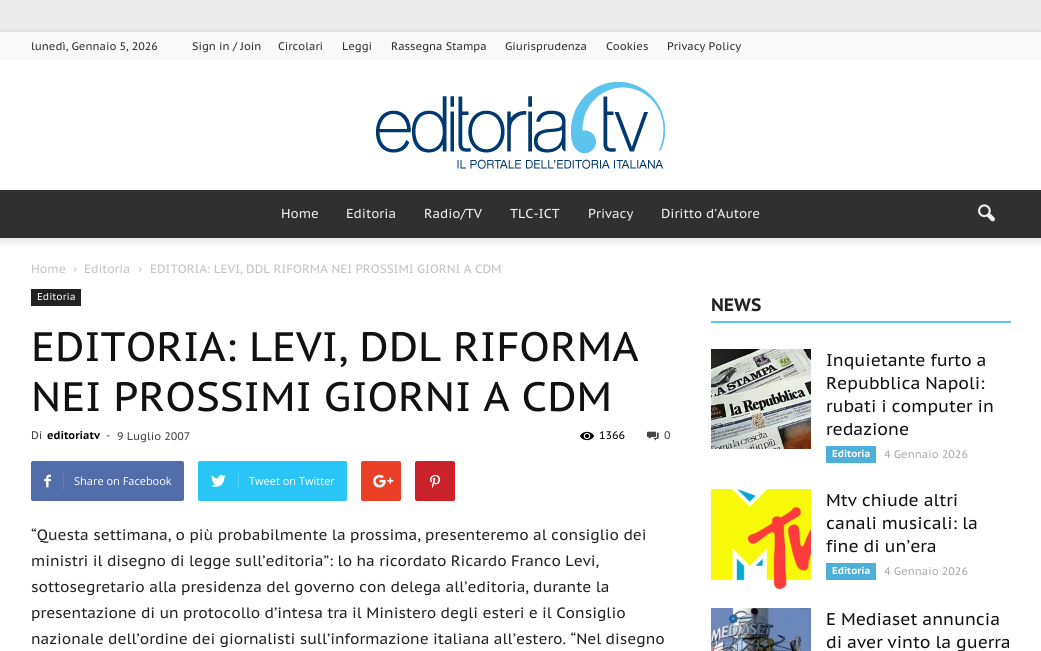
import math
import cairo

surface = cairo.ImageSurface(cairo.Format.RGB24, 1041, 651)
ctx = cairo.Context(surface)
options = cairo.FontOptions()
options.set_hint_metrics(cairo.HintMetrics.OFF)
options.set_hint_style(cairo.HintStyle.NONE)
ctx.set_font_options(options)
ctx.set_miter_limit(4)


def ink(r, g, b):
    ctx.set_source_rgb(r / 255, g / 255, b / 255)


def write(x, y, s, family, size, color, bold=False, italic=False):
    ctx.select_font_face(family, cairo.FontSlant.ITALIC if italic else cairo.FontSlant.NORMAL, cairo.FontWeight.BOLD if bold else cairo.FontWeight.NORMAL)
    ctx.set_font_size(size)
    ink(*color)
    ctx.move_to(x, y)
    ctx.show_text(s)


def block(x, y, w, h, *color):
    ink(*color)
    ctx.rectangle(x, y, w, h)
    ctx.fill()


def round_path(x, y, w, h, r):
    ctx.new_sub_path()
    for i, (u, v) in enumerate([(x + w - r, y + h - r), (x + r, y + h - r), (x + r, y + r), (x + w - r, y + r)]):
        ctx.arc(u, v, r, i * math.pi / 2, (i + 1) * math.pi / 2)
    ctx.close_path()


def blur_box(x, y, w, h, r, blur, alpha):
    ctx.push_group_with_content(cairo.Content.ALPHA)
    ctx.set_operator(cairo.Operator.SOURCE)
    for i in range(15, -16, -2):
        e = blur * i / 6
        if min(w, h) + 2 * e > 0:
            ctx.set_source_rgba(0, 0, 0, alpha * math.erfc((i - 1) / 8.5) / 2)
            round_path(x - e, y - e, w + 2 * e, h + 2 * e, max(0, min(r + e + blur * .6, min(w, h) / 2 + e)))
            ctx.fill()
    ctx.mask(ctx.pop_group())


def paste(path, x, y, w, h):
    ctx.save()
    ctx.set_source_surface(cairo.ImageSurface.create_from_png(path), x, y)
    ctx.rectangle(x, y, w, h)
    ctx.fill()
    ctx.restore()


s1 = dict(family="PT Sans Caption", size=11, color=(47, 47, 47))
s2 = dict(family="PT Sans Caption", size=13, color=(239, 239, 239))
s3 = dict(family="PT Sans Caption", size=12, color=(195, 195, 195))
s4 = dict(family="PT Sans Caption", size=10, color=(255, 255, 255))
s5 = dict(family="PT Sans Caption", size=41, color=(17, 17, 17))
s6 = dict(family="PT Sans Caption", size=11, color=(68, 68, 68))
s7 = dict(family="PT Sans Caption", size=11, color=(0, 0, 0), bold=True)
s8 = dict(family="PT Sans Caption", size=11, color=(0, 0, 0))
s9 = dict(family="Open Sans", size=11, color=(255, 255, 255))
s10 = dict(family="PT Sans Caption", size=15, color=(34, 34, 34))
s11 = dict(family="PT Sans Caption", size=18, color=(34, 34, 34), bold=True)
s12 = dict(family="PT Sans Caption", size=17, color=(17, 17, 17))
s13 = dict(family="PT Sans Caption", size=10, color=(255, 255, 255), bold=True)
s14 = dict(family="PT Sans Caption", size=11, color=(170, 170, 170))

ink(235, 235, 235)
ctx.paint()
ink(0, 0, 0)
blur_box(0, 32, 1041, 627, 0, 2.5, 0.12)
block(0, 32, 1041, 28, 249, 249, 249)
write(31, 50, "lunedì, Gennaio 5, 2026", **s1)
write(192, 50, "Sign in / Join", **s1)
write(278, 50, "Circolari", **s1)
write(342, 50, "Leggi", **s1)
write(391, 50, "Rassegna Stampa", **s1)
write(505, 50, "Giurisprudenza", **s1)
write(606, 50, "Cookies", **s1)
write(667, 50, "Privacy Policy", **s1)
block(0, 60, 1041, 130, 255, 255, 255)
paste("pic1.png", 376, 82, 289, 87)
block(0, 190, 1041, 48, 48, 48, 48)
write(281, 218, "Home", **s2)
write(346, 218, "Editoria", **s2)
write(424, 218, "Radio/TV", **s2)
write(510, 218, "TLC-ICT", **s2)
write(588, 218, "Privacy", **s2)
write(661, 218, "Diritto d’Autore", **s2)
paste("pic2.png", 978, 204, 17, 18)
block(0, 238, 1041, 413, 255, 255, 255)
paste("pic3.png", 0, 238, 1041, 9)
write(31, 273, "Home", **s3)
paste("pic4.png", 74, 267, 3, 5)
write(84, 273, "Editoria", **s3)
paste("pic4.png", 139, 267, 3, 5)
write(150, 273, "EDITORIA: LEVI, DDL RIFORMA NEI PROSSIMI GIORNI A CDM", **s3)
block(31, 289, 50, 17, 34, 34, 34)
write(37, 300, "Editoria", **s4)
write(31, 361, "EDITORIA: LEVI, DDL RIFORMA", **s5)
write(31, 411, "NEI PROSSIMI GIORNI A CDM", **s5)
write(31, 439, "Di", **s6)
write(47, 439, "editoriatv", **s7)
write(106, 439, "-", **s6)
write(117, 440, "9 Luglio 2007", **s6)
paste("pic5.png", 580, 431, 14, 10)
write(599, 439, "1366", **s8)
paste("pic6.png", 647, 431, 12, 10)
write(664, 439, "0", **s6)
ink(81, 110, 171)
round_path(31, 461, 153, 40, 2)
ctx.fill()
paste("pic7.png", 44, 474, 7, 14)
block(63, 473, 1, 16, 98, 125, 179)
write(74, 485, "Share on Facebook", **s9)
ink(41, 197, 246)
round_path(198, 461, 149, 40, 2)
ctx.fill()
paste("pic8.png", 211, 474, 15, 13)
block(238, 473, 1, 16, 84, 209, 248)
write(249, 485, "Tweet on Twitter", **s9)
ink(235, 64, 38)
round_path(361, 461, 40, 40, 2)
ctx.fill()
paste("pic9.png", 373, 474, 21, 14)
ink(202, 33, 42)
round_path(415, 461, 40, 40, 2)
ctx.fill()
paste("pic10.png", 430, 474, 11, 14)
write(31, 540, "“Questa settimana, o più probabilmente la prossima, presenteremo al consiglio dei", **s10)
write(31, 566, "ministri il disegno di legge sull’editoria”: lo ha ricordato Ricardo Franco Levi,", **s10)
write(31, 592, "sottosegretario alla presidenza del governo con delega all’editoria, durante la", **s10)
write(31, 618, "presentazione di un protocollo d’intesa tra il Ministero degli esteri e il Consiglio", **s10)
write(31, 644, "nazionale dell’ordine dei giornalisti sull’informazione italiana all’estero. “Nel disegno", **s10)
block(711, 321, 300, 2, 93, 196, 238)
write(711, 311, "NEWS", **s11)
paste("pic11.png", 711, 349, 100, 100)
write(826, 366, "Inquietante furto a", **s12)
write(826, 389, "Repubblica Napoli:", **s12)
write(826, 412, "rubati i computer in", **s12)
write(826, 435, "redazione", **s12)
block(826, 446, 50, 17, 76, 176, 216)
write(832, 457, "Editoria", **s13)
write(884, 458, "4 Gennaio 2026", **s14)
paste("pic12.png", 711, 489, 100, 100)
write(826, 506, "Mtv chiude altri", **s12)
write(826, 529, "canali musicali: la", **s12)
write(826, 552, "fine di un’era", **s12)
block(826, 563, 50, 17, 76, 176, 216)
write(832, 574, "Editoria", **s13)
write(884, 575, "4 Gennaio 2026", **s14)
paste("pic13.png", 711, 608, 100, 43)
write(826, 625, "E Mediaset annuncia", **s12)
write(826, 648, "di aver vinto la guerra", **s12)
surface.write_to_png("screenshot.png")
